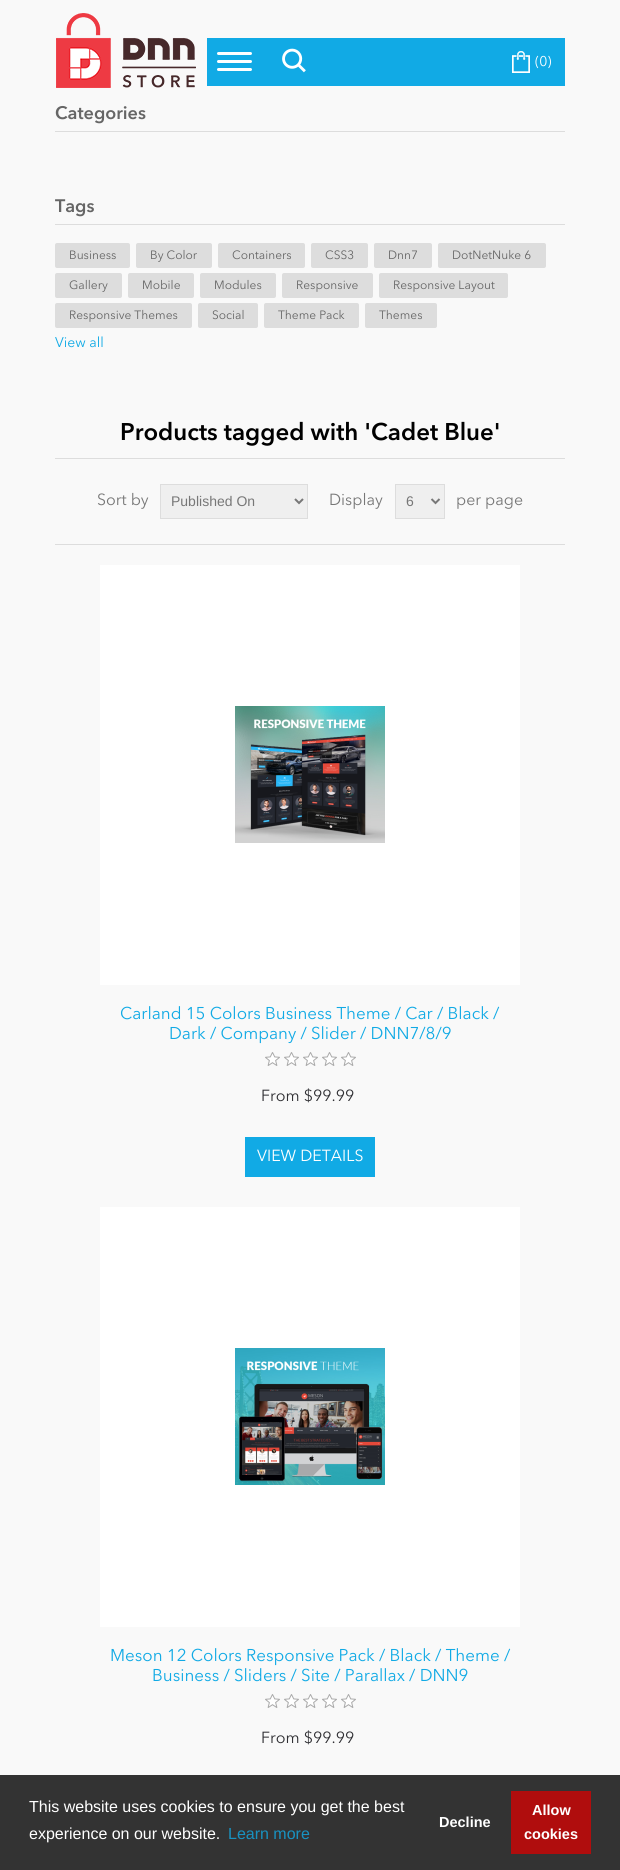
import math
import cairo

surface = cairo.ImageSurface(cairo.Format.RGB24, 620, 1870)
ctx = cairo.Context(surface)
options = cairo.FontOptions()
options.set_hint_metrics(cairo.HintMetrics.OFF)
options.set_hint_style(cairo.HintStyle.NONE)
ctx.set_font_options(options)
ctx.set_miter_limit(4)


def ink(r, g, b):
    ctx.set_source_rgb(r / 255, g / 255, b / 255)


def write(x, y, s, family, size, color, bold=False, italic=False):
    ctx.select_font_face(family, cairo.FontSlant.ITALIC if italic else cairo.FontSlant.NORMAL, cairo.FontWeight.BOLD if bold else cairo.FontWeight.NORMAL)
    ctx.set_font_size(size)
    ink(*color)
    ctx.move_to(x, y)
    ctx.show_text(s)


def block(x, y, w, h, *color):
    ink(*color)
    ctx.rectangle(x, y, w, h)
    ctx.fill()


def round_path(x, y, w, h, r):
    ctx.new_sub_path()
    for i, (u, v) in enumerate([(x + w - r, y + h - r), (x + r, y + h - r), (x + r, y + r), (x + w - r, y + r)]):
        ctx.arc(u, v, r, i * math.pi / 2, (i + 1) * math.pi / 2)
    ctx.close_path()


def paste(path, x, y, w, h):
    ctx.save()
    ctx.set_source_surface(cairo.ImageSurface.create_from_png(path), x, y)
    ctx.rectangle(x, y, w, h)
    ctx.fill()
    ctx.restore()


s1 = dict(family="Avenir Next", size=14, color=(255, 255, 255))
s2 = dict(family="Avenir Next SemiBold", size=18, color=(102, 102, 102))
s3 = dict(family="Avenir Next", size=12, color=(102, 102, 102))
s4 = dict(family="Avenir Next", size=14, color=(17, 170, 229))
s5 = dict(family="Avenir Next SemiBold", size=24, color=(0, 0, 0))
s6 = dict(family="Avenir Next", size=16, color=(119, 119, 119))
s7 = dict(family="Liberation Sans", size=14, color=(119, 119, 119))
s8 = dict(family="Avenir Next", size=17, color=(17, 170, 229))
s9 = dict(family="Avenir Next", size=16, color=(47, 47, 51))
s10 = dict(family="Avenir Next", size=16, color=(255, 255, 255))
s11 = dict(family="Liberation Sans", size=16, color=(255, 255, 255))
s12 = dict(family="Liberation Sans", size=16, color=(24, 146, 193))
s13 = dict(family="Liberation Sans", size=14.5, color=(255, 255, 255), bold=True)

ink(249, 249, 249)
ctx.paint()
paste("pic1.png", 56, 13, 140, 75)
block(207, 38, 358, 48, 17, 170, 229)
ink(255, 255, 255)
round_path(217, 60, 35, 3, 1.5)
ctx.fill()
round_path(217, 52, 35, 3, 1.5)
ctx.fill()
round_path(217, 68, 35, 3, 1.5)
ctx.fill()
paste("pic2.png", 282, 48, 24, 25)
paste("pic3.png", 512, 51, 18, 22)
write(535, 66, "(0)", **s1)
block(55, 131, 510, 1, 221, 221, 221)
write(55, 119, "Categories", **s2)
block(55, 224, 510, 1, 221, 221, 221)
write(55, 212, "Tags", **s2)
ink(221, 221, 221)
round_path(55, 243, 75, 25, 2)
ctx.fill()
write(69, 259, "Business", **s3)
ink(221, 221, 221)
round_path(136, 243, 76, 25, 2)
ctx.fill()
write(150, 259, "By Color", **s3)
ink(221, 221, 221)
round_path(218, 243, 87, 25, 2)
ctx.fill()
write(232, 259, "Containers", **s3)
ink(221, 221, 221)
round_path(311, 243, 57, 25, 2)
ctx.fill()
write(325, 259, "CSS3", **s3)
ink(221, 221, 221)
round_path(374, 243, 58, 25, 2)
ctx.fill()
write(388, 259, "Dnn7", **s3)
ink(221, 221, 221)
round_path(438, 243, 108, 25, 2)
ctx.fill()
write(452, 259, "DotNetNuke 6", **s3)
ink(221, 221, 221)
round_path(55, 273, 67, 25, 2)
ctx.fill()
write(69, 289, "Gallery", **s3)
ink(221, 221, 221)
round_path(128, 273, 66, 25, 2)
ctx.fill()
write(142, 289, "Mobile", **s3)
ink(221, 221, 221)
round_path(200, 273, 76, 25, 2)
ctx.fill()
write(214, 289, "Modules", **s3)
ink(221, 221, 221)
round_path(282, 273, 91, 25, 2)
ctx.fill()
write(296, 289, "Responsive", **s3)
ink(221, 221, 221)
round_path(379, 273, 129, 25, 2)
ctx.fill()
write(393, 289, "Responsive Layout", **s3)
ink(221, 221, 221)
round_path(55, 303, 137, 25, 2)
ctx.fill()
write(69, 319, "Responsive Themes", **s3)
ink(221, 221, 221)
round_path(198, 303, 60, 25, 2)
ctx.fill()
write(212, 319, "Social", **s3)
ink(221, 221, 221)
round_path(264, 303, 95, 25, 2)
ctx.fill()
write(278, 319, "Theme Pack", **s3)
ink(221, 221, 221)
round_path(365, 303, 72, 25, 2)
ctx.fill()
write(379, 319, "Themes", **s3)
write(55, 347, "View all", **s4)
block(55, 458, 510, 1, 221, 221, 221)
write(120, 440, "Products tagged with 'Cadet Blue'", **s5)
block(55, 544, 510, 1, 221, 221, 221)
write(97, 505, "Sort by", **s6)
ink(239, 239, 239)
ctx.rectangle(160.5, 484.5, 147, 34)
ctx.fill_preserve()
ink(221, 221, 221)
ctx.set_line_width(1)
ctx.stroke()
ctx.new_path()
ctx.move_to(295, 499)
ctx.line_to(299, 503)
ctx.line_to(303, 499)
ink(119, 119, 119)
ctx.set_line_width(2)
ctx.stroke()
write(171, 506, "Published On", **s7)
write(329, 505, "Display", **s6)
ink(239, 239, 239)
ctx.rectangle(395.5, 484.5, 49, 34)
ctx.fill_preserve()
ink(221, 221, 221)
ctx.set_line_width(1)
ctx.stroke()
ctx.new_path()
ctx.move_to(431.5, 499)
ctx.line_to(435.5, 503)
ctx.line_to(439.5, 499)
ink(119, 119, 119)
ctx.set_line_width(2)
ctx.stroke()
write(406, 506, "6", **s7)
write(456, 505, "per page", **s6)
block(100, 565, 420, 420, 255, 255, 255)
paste("pic4.png", 235, 706, 150, 137)
write(120, 1019, "Carland 15 Colors Business Theme / Car / Black /", **s8)
write(169, 1039, "Dark / Company / Slider / DNN7/8/9", **s8)
paste("pic5.png", 265, 1052, 91, 14)
write(261, 1101, "From $99.99", **s9)
block(245, 1137, 130, 40, 17, 170, 229)
write(257, 1161, "VIEW DETAILS", **s10)
block(100, 1207, 420, 420, 255, 255, 255)
paste("pic6.png", 235, 1348, 150, 137)
write(110, 1661, "Meson 12 Colors Responsive Pack / Black / Theme /", **s8)
write(152, 1681, "Business / Sliders / Site / Parallax / DNN9", **s8)
paste("pic5.png", 265, 1694, 91, 14)
write(261, 1743, "From $99.99", **s9)
block(0, 1775, 620, 95, 51, 51, 51)
write(29, 1812, "This website uses cookies to ensure you get the best", **s11)
write(29, 1839, "experience on our website.", **s11)
write(228, 1839, "Learn more", **s12)
write(439, 1827, "Decline", **s13)
block(511, 1791, 80, 63, 176, 13, 13)
write(532, 1815, "Allow", **s13)
write(524, 1839, "cookies", **s13)
surface.write_to_png("screenshot.png")
